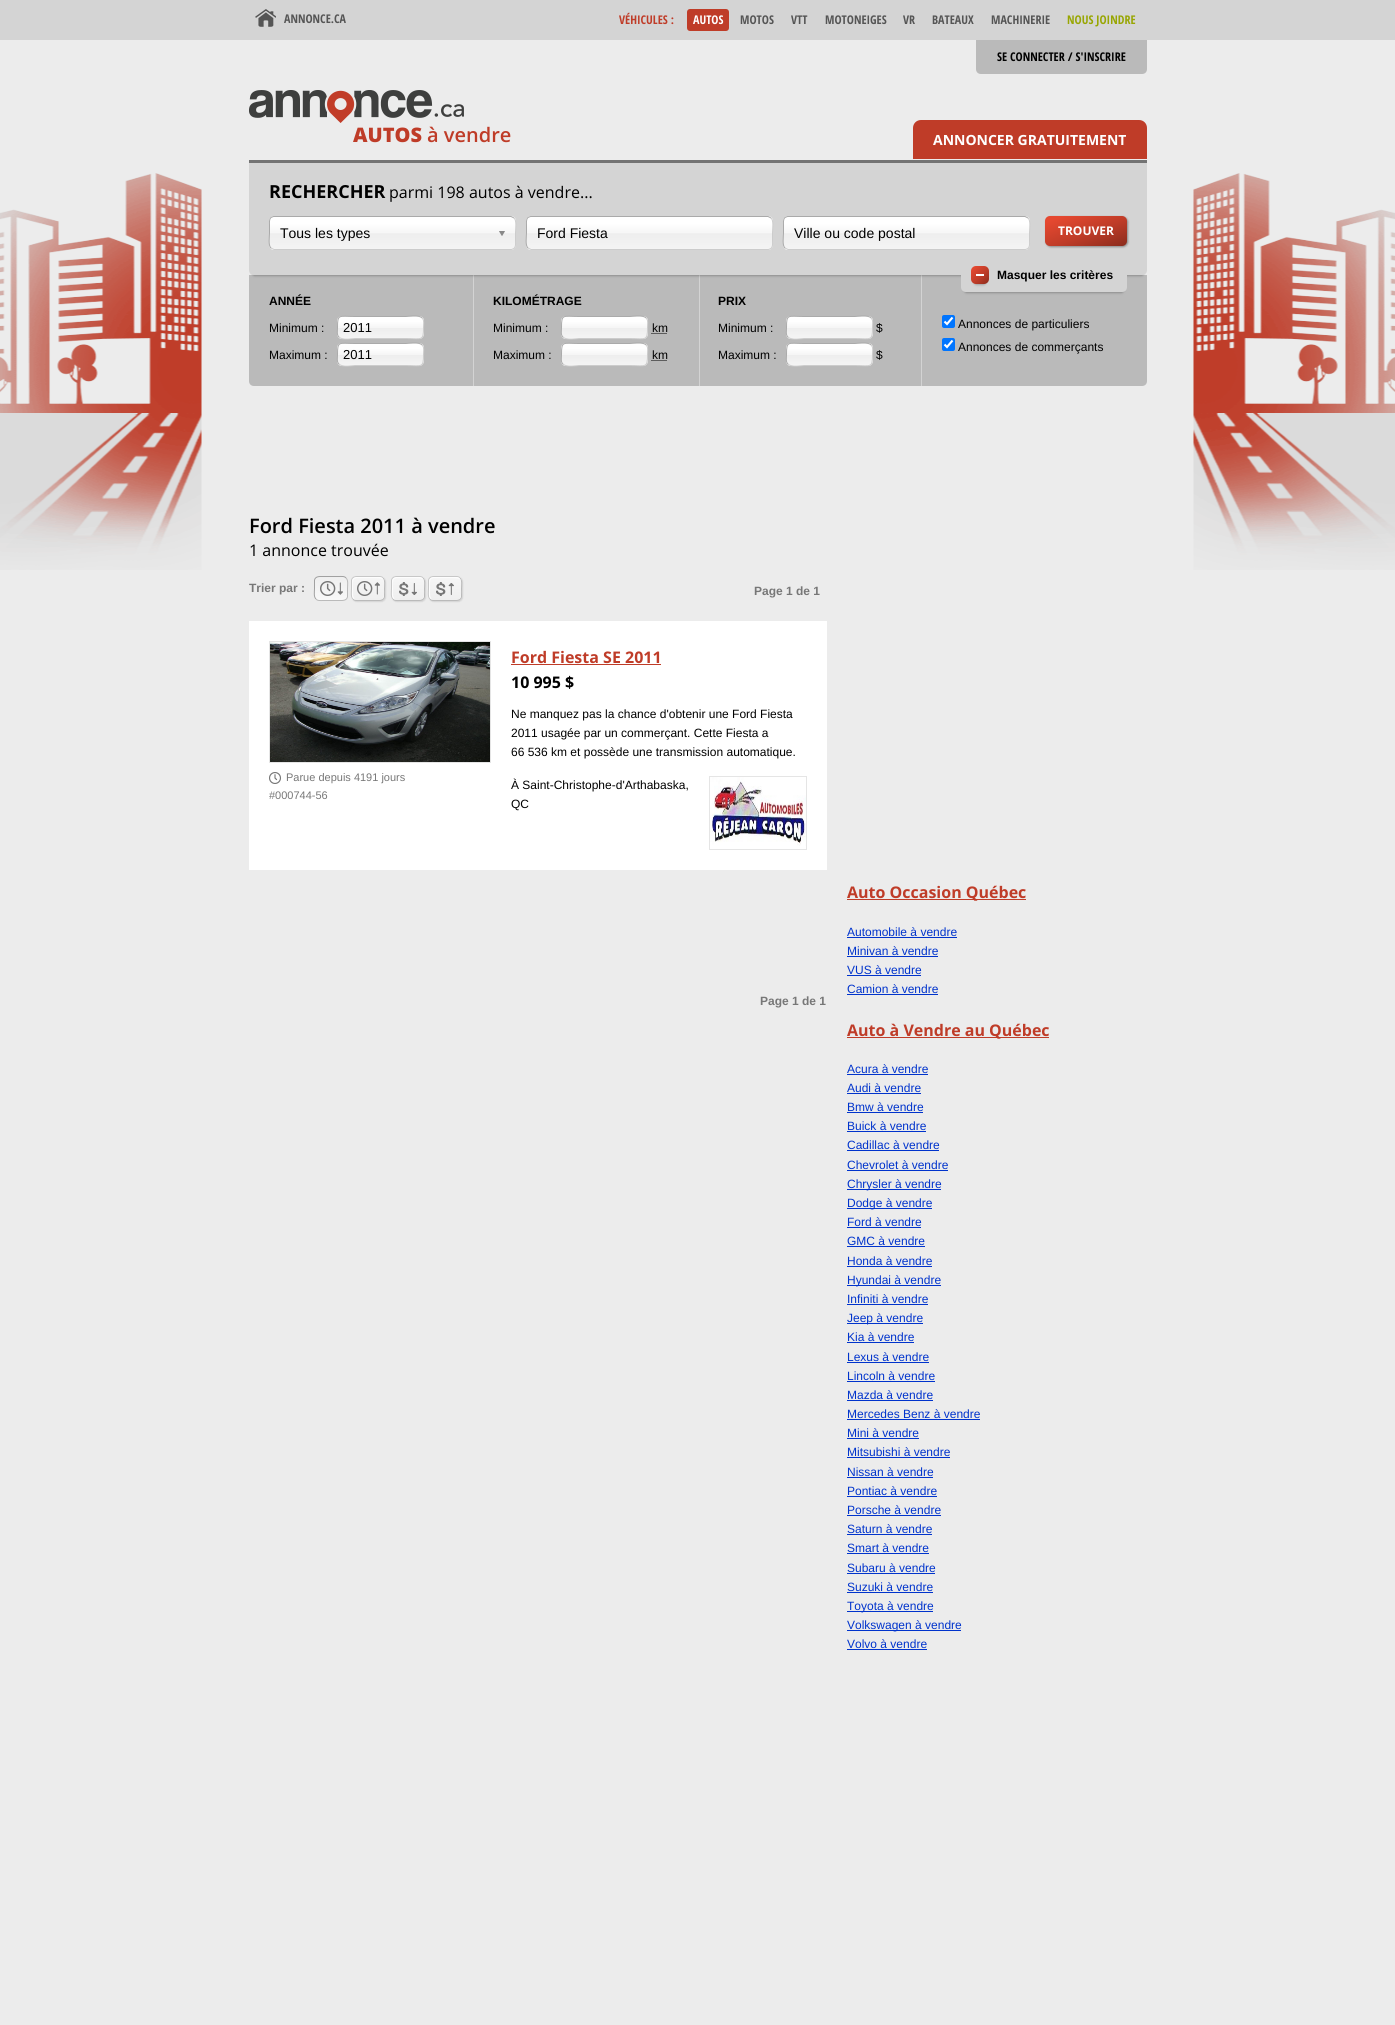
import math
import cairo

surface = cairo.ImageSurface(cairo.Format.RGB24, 1395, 2025)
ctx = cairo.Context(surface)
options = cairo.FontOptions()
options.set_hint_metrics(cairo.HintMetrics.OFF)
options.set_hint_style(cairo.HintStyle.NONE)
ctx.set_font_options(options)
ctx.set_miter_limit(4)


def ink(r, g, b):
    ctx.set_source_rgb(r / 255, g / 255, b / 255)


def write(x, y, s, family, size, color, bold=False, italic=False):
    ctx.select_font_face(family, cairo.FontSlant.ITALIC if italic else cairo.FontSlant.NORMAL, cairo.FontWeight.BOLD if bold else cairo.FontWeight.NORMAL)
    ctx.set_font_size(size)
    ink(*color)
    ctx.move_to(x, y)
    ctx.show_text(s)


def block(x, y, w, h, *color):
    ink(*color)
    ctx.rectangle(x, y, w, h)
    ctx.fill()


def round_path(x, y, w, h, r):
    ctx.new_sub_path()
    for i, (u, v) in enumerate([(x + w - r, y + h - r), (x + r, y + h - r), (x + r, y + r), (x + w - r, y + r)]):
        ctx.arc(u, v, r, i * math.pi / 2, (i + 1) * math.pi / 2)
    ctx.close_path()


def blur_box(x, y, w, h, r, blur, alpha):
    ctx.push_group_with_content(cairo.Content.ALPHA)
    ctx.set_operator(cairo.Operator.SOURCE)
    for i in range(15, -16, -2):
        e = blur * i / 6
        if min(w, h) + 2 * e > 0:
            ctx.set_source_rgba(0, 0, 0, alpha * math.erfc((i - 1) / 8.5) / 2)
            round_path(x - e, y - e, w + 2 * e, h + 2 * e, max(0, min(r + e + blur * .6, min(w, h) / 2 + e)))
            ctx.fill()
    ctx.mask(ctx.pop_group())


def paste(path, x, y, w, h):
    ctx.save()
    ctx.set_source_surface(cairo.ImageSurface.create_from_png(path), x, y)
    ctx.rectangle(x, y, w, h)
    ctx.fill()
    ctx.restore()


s1 = dict(family="Open Sans Condensed", size=12, color=(85, 85, 85), bold=True)
s2 = dict(family="Open Sans Condensed", size=12, color=(191, 60, 40), bold=True)
s3 = dict(family="Open Sans Condensed", size=12, color=(255, 255, 255), bold=True)
s4 = dict(family="Open Sans Condensed", size=12, color=(152, 166, 3), bold=True)
s5 = dict(family="Open Sans Condensed", size=12, color=(0, 0, 0), bold=True)
s6 = dict(family="Open Sans ExtraBold", size=20, color=(191, 60, 40))
s7 = dict(family="Open Sans SemiBold", size=20, color=(191, 60, 40))
s8 = dict(family="Open Sans", size=14, color=(255, 255, 255), bold=True)
s9 = dict(family="Open Sans", size=18, color=(0, 0, 0), bold=True)
s10 = dict(family="Open Sans", size=16, color=(0, 0, 0))
s11 = dict(family="Liberation Sans", size=14, color=(0, 0, 0))
s12 = dict(family="Open Sans", size=12, color=(255, 255, 255), bold=True)
s13 = dict(family="Liberation Sans", size=12, color=(0, 0, 0), bold=True)
s14 = dict(family="Liberation Sans", size=12, color=(0, 0, 0))
s15 = dict(family="Liberation Sans", size=13, color=(0, 0, 0))
s16 = dict(family="Open Sans SemiBold", size=20, color=(0, 0, 0))
s17 = dict(family="Liberation Sans", size=12, color=(119, 119, 119), bold=True)
s18 = dict(family="Liberation Sans", size=11, color=(119, 119, 119))
s19 = dict(family="Open Sans", size=16, color=(191, 60, 40), bold=True)
s20 = dict(family="Open Sans", size=16, color=(0, 0, 0), bold=True)
s21 = dict(family="Liberation Sans", size=12, color=(0, 51, 204))

ink(236, 236, 236)
ctx.paint()
paste("pic1.png", 0, 173, 1395, 397)
block(0, 0, 1395, 40, 212, 212, 212)
paste("pic2.png", 255, 9, 21, 18)
write(284, 23, "ANNONCE.CA", **s1)
write(619, 24, "VÉHICULES :", **s2)
round_path(687, 9, 42, 22, 3)
ctx.fill()
write(693, 24, "AUTOS", **s3)
write(740, 24, "MOTOS", **s1)
write(791, 24, "VTT", **s1)
write(825, 24, "MOTONEIGES", **s1)
write(903, 24, "VR", **s1)
write(932, 24, "BATEAUX", **s1)
write(991, 24, "MACHINERIE", **s1)
write(1067, 24, "NOUS JOINDRE", **s4)
block(249, 160, 898, 3, 115, 115, 115)
ink(186, 186, 186)
ctx.new_path()
ctx.move_to(976, 40)
ctx.line_to(1147, 40)
ctx.line_to(1147, 69)
ctx.curve_to(1147, 72, 1145, 74, 1142, 74)
ctx.line_to(981, 74)
ctx.curve_to(978, 74, 976, 72, 976, 69)
ctx.close_path()
ctx.fill()
write(997, 61, "SE CONNECTER / S'INSCRIRE", **s5)
paste("pic3.png", 249, 90, 215, 33)
write(353, 142, "AUTOS", **s6)
write(427, 142, "à vendre", **s7)
ctx.new_path()
ctx.move_to(921, 120)
ctx.line_to(1139, 120)
ctx.curve_to(1143.5, 120, 1147, 123.5, 1147, 128)
ctx.line_to(1147, 159)
ctx.line_to(913, 159)
ctx.line_to(913, 128)
ctx.curve_to(913, 123.5, 916.5, 120, 921, 120)
ctx.close_path()
ctx.fill()
write(933, 145, "ANNONCER GRATUITEMENT", **s8)
ink(186, 186, 186)
ctx.new_path()
ctx.move_to(249, 275)
ctx.line_to(1147, 275)
ctx.line_to(1147, 381)
ctx.curve_to(1147, 384, 1145, 386, 1142, 386)
ctx.line_to(254, 386)
ctx.curve_to(251, 386, 249, 384, 249, 381)
ctx.close_path()
ctx.fill()
block(699, 275, 1, 111, 211, 211, 211)
block(473, 275, 1, 111, 211, 211, 211)
block(921, 275, 1, 111, 211, 211, 211)
ink(0, 0, 0)
blur_box(253, 171, 890, 104, 1, 1.5, 0.45)
ink(212, 212, 212)
ctx.new_path()
ctx.move_to(249, 163)
ctx.line_to(1147, 163)
ctx.line_to(1147, 270)
ctx.curve_to(1147, 273, 1145, 275, 1142, 275)
ctx.line_to(254, 275)
ctx.curve_to(251, 275, 249, 273, 249, 270)
ctx.close_path()
ctx.fill()
write(269, 198, "RECHERCHER", **s9)
write(389, 198, "parmi 198 autos à vendre...", **s10)
ctx.save()
round_path(269, 216, 247, 34, 5)
ctx.clip()
gradient = cairo.LinearGradient(393, 185, 393, 217)
gradient.add_color_stop_rgba(0.2, 1, 1, 1, 1)
gradient.add_color_stop_rgba(0.5, 0.965, 0.965, 0.965, 1)
gradient.add_color_stop_rgba(0.52, 0.933, 0.933, 0.933, 1)
gradient.add_color_stop_rgba(1, 0.957, 0.957, 0.957, 1)
ctx.set_source(gradient)
ctx.rectangle(269, 216, 247, 1)
ctx.fill()
gradient = cairo.LinearGradient(393, 217, 393, 249)
gradient.add_color_stop_rgba(0.2, 1, 1, 1, 1)
gradient.add_color_stop_rgba(0.5, 0.965, 0.965, 0.965, 1)
gradient.add_color_stop_rgba(0.52, 0.933, 0.933, 0.933, 1)
gradient.add_color_stop_rgba(1, 0.957, 0.957, 0.957, 1)
ctx.set_source(gradient)
ctx.rectangle(269, 217, 247, 32)
ctx.fill()
gradient = cairo.LinearGradient(393, 249, 393, 281)
gradient.add_color_stop_rgba(0.2, 1, 1, 1, 1)
gradient.add_color_stop_rgba(0.5, 0.965, 0.965, 0.965, 1)
gradient.add_color_stop_rgba(0.52, 0.933, 0.933, 0.933, 1)
gradient.add_color_stop_rgba(1, 0.957, 0.957, 0.957, 1)
ctx.set_source(gradient)
ctx.rectangle(269, 249, 247, 1)
ctx.fill()
ctx.restore()
ctx.new_path()
ctx.move_to(514, 218)
ctx.curve_to(517, 220.5, 515.5, 229.5, 515.5, 233)
ctx.line_to(515.5, 241)
ctx.curve_to(515.5, 243.5, 516, 246.5, 514, 248.5)
ctx.line_to(511.5, 249.5)
ctx.line_to(274, 249.5)
ctx.line_to(271, 248)
ink(204, 204, 204)
ctx.set_line_width(1)
ctx.stroke()
ctx.new_path()
ctx.move_to(271, 248)
ctx.curve_to(268, 245.5, 269.5, 236.5, 269.5, 233)
ctx.line_to(269.5, 225)
ctx.curve_to(269.5, 222.5, 269, 219.5, 271, 217.5)
ctx.line_to(273.5, 216.5)
ctx.line_to(511, 216.5)
ctx.line_to(514, 218)
ink(170, 170, 170)
ctx.stroke()
write(280, 238, "Tous les types", **s11)
paste("pic4.png", 499, 231, 6, 5)
ctx.save()
round_path(526, 216, 247, 34, 5)
ctx.clip()
gradient = cairo.LinearGradient(650, 185, 650, 217)
gradient.add_color_stop_rgba(0.2, 1, 1, 1, 1)
gradient.add_color_stop_rgba(0.5, 0.965, 0.965, 0.965, 1)
gradient.add_color_stop_rgba(0.52, 0.933, 0.933, 0.933, 1)
gradient.add_color_stop_rgba(1, 0.957, 0.957, 0.957, 1)
ctx.set_source(gradient)
ctx.rectangle(526, 216, 247, 1)
ctx.fill()
gradient = cairo.LinearGradient(650, 217, 650, 249)
gradient.add_color_stop_rgba(0.2, 1, 1, 1, 1)
gradient.add_color_stop_rgba(0.5, 0.965, 0.965, 0.965, 1)
gradient.add_color_stop_rgba(0.52, 0.933, 0.933, 0.933, 1)
gradient.add_color_stop_rgba(1, 0.957, 0.957, 0.957, 1)
ctx.set_source(gradient)
ctx.rectangle(526, 217, 247, 32)
ctx.fill()
gradient = cairo.LinearGradient(650, 249, 650, 281)
gradient.add_color_stop_rgba(0.2, 1, 1, 1, 1)
gradient.add_color_stop_rgba(0.5, 0.965, 0.965, 0.965, 1)
gradient.add_color_stop_rgba(0.52, 0.933, 0.933, 0.933, 1)
gradient.add_color_stop_rgba(1, 0.957, 0.957, 0.957, 1)
ctx.set_source(gradient)
ctx.rectangle(526, 249, 247, 1)
ctx.fill()
ctx.restore()
ctx.new_path()
ctx.move_to(771, 218)
ctx.curve_to(774, 220.5, 772.5, 229.5, 772.5, 233)
ctx.line_to(772.5, 241)
ctx.curve_to(772.5, 243.5, 773, 246.5, 771, 248.5)
ctx.line_to(768.5, 249.5)
ctx.line_to(531, 249.5)
ctx.line_to(528, 248)
ink(204, 204, 204)
ctx.stroke()
ctx.new_path()
ctx.move_to(528, 248)
ctx.curve_to(525, 245.5, 526.5, 236.5, 526.5, 233)
ctx.line_to(526.5, 225)
ctx.curve_to(526.5, 222.5, 526, 219.5, 528, 217.5)
ctx.line_to(530.5, 216.5)
ctx.line_to(768, 216.5)
ctx.line_to(771, 218)
ink(170, 170, 170)
ctx.stroke()
write(537, 238, "Ford Fiesta", **s11)
ctx.save()
round_path(783, 216, 247, 34, 5)
ctx.clip()
gradient = cairo.LinearGradient(907, 185, 907, 217)
gradient.add_color_stop_rgba(0.2, 1, 1, 1, 1)
gradient.add_color_stop_rgba(0.5, 0.965, 0.965, 0.965, 1)
gradient.add_color_stop_rgba(0.52, 0.933, 0.933, 0.933, 1)
gradient.add_color_stop_rgba(1, 0.957, 0.957, 0.957, 1)
ctx.set_source(gradient)
ctx.rectangle(783, 216, 247, 1)
ctx.fill()
gradient = cairo.LinearGradient(907, 217, 907, 249)
gradient.add_color_stop_rgba(0.2, 1, 1, 1, 1)
gradient.add_color_stop_rgba(0.5, 0.965, 0.965, 0.965, 1)
gradient.add_color_stop_rgba(0.52, 0.933, 0.933, 0.933, 1)
gradient.add_color_stop_rgba(1, 0.957, 0.957, 0.957, 1)
ctx.set_source(gradient)
ctx.rectangle(783, 217, 247, 32)
ctx.fill()
gradient = cairo.LinearGradient(907, 249, 907, 281)
gradient.add_color_stop_rgba(0.2, 1, 1, 1, 1)
gradient.add_color_stop_rgba(0.5, 0.965, 0.965, 0.965, 1)
gradient.add_color_stop_rgba(0.52, 0.933, 0.933, 0.933, 1)
gradient.add_color_stop_rgba(1, 0.957, 0.957, 0.957, 1)
ctx.set_source(gradient)
ctx.rectangle(783, 249, 247, 1)
ctx.fill()
ctx.restore()
ctx.new_path()
ctx.move_to(1028, 218)
ctx.curve_to(1031, 220.5, 1029.5, 229.5, 1029.5, 233)
ctx.line_to(1029.5, 241)
ctx.curve_to(1029.5, 243.5, 1030, 246.5, 1028, 248.5)
ctx.line_to(1025.5, 249.5)
ctx.line_to(788, 249.5)
ctx.line_to(785, 248)
ink(204, 204, 204)
ctx.stroke()
ctx.new_path()
ctx.move_to(785, 248)
ctx.curve_to(782, 245.5, 783.5, 236.5, 783.5, 233)
ctx.line_to(783.5, 225)
ctx.curve_to(783.5, 222.5, 783, 219.5, 785, 217.5)
ctx.line_to(787.5, 216.5)
ctx.line_to(1025, 216.5)
ctx.line_to(1028, 218)
ink(170, 170, 170)
ctx.stroke()
write(794, 238, "Ville ou code postal", **s11)
ink(0, 0, 0)
blur_box(1046, 217, 82, 30, 5, 1, 0.35)
gradient = cairo.LinearGradient(1076, 205, 1096, 257)
gradient.add_color_stop_rgba(0.1, 0.898, 0.282, 0.188, 1)
gradient.add_color_stop_rgba(0.55, 0.749, 0.235, 0.157, 1)
gradient.add_color_stop_rgba(1, 0.549, 0.173, 0.114, 1)
ctx.set_source(gradient)
round_path(1045, 216, 82, 30, 5)
ctx.fill()
write(1058, 235, "TROUVER", **s12)
ink(0, 0, 0)
blur_box(965, 274, 158, 18, 1, 1.5, 0.45)
ink(212, 212, 212)
ctx.new_path()
ctx.move_to(961, 266)
ctx.line_to(1127, 266)
ctx.line_to(1127, 287)
ctx.curve_to(1127, 290, 1125, 292, 1122, 292)
ctx.line_to(966, 292)
ctx.curve_to(963, 292, 961, 290, 961, 287)
ctx.close_path()
ctx.fill()
ink(0, 0, 0)
blur_box(975, 274, 10, 10, 1, 1.5, 0.45)
gradient = cairo.LinearGradient(971, 266, 989, 284)
gradient.add_color_stop_rgba(0.1, 0.898, 0.282, 0.188, 1)
gradient.add_color_stop_rgba(0.55, 0.749, 0.235, 0.157, 1)
gradient.add_color_stop_rgba(1, 0.549, 0.173, 0.114, 1)
ctx.set_source(gradient)
round_path(971, 266, 18, 18, 5)
ctx.fill()
write(997, 279, "Masquer les critères", **s13)
block(976, 274, 8, 2, 255, 255, 255)
write(269, 305, "ANNÉE", **s13)
write(269, 332, "Minimum :", **s14)
ctx.save()
round_path(337, 316, 87, 23, 5)
ctx.clip()
gradient = cairo.LinearGradient(381, 296, 381, 317)
gradient.add_color_stop_rgba(0.2, 1, 1, 1, 1)
gradient.add_color_stop_rgba(0.5, 0.965, 0.965, 0.965, 1)
gradient.add_color_stop_rgba(0.52, 0.933, 0.933, 0.933, 1)
gradient.add_color_stop_rgba(1, 0.957, 0.957, 0.957, 1)
ctx.set_source(gradient)
ctx.rectangle(337, 316, 87, 1)
ctx.fill()
gradient = cairo.LinearGradient(381, 317, 381, 338)
gradient.add_color_stop_rgba(0.2, 1, 1, 1, 1)
gradient.add_color_stop_rgba(0.5, 0.965, 0.965, 0.965, 1)
gradient.add_color_stop_rgba(0.52, 0.933, 0.933, 0.933, 1)
gradient.add_color_stop_rgba(1, 0.957, 0.957, 0.957, 1)
ctx.set_source(gradient)
ctx.rectangle(337, 317, 87, 21)
ctx.fill()
gradient = cairo.LinearGradient(381, 338, 381, 359)
gradient.add_color_stop_rgba(0.2, 1, 1, 1, 1)
gradient.add_color_stop_rgba(0.5, 0.965, 0.965, 0.965, 1)
gradient.add_color_stop_rgba(0.52, 0.933, 0.933, 0.933, 1)
gradient.add_color_stop_rgba(1, 0.957, 0.957, 0.957, 1)
ctx.set_source(gradient)
ctx.rectangle(337, 338, 87, 1)
ctx.fill()
ctx.restore()
ctx.new_path()
ctx.move_to(422, 318)
ctx.curve_to(424.5, 320, 423.5, 324.5, 423.5, 327.5)
ctx.curve_to(423.5, 341.5, 422, 338.5, 406, 338.5)
ctx.line_to(355, 338.5)
ctx.curve_to(353, 338.5, 342, 340.5, 339, 337)
ink(204, 204, 204)
ctx.stroke()
ctx.new_path()
ctx.move_to(339, 337)
ctx.curve_to(336.5, 335, 337.5, 330.5, 337.5, 327.5)
ctx.curve_to(337.5, 313.5, 339, 316.5, 355, 316.5)
ctx.line_to(406, 316.5)
ctx.curve_to(408, 316.5, 419, 314.5, 422, 318)
ink(170, 170, 170)
ctx.stroke()
write(343, 332, "2011", **s15)
write(269, 359, "Maximum :", **s14)
ctx.save()
round_path(337, 343, 87, 23, 5)
ctx.clip()
gradient = cairo.LinearGradient(381, 323, 381, 344)
gradient.add_color_stop_rgba(0.2, 1, 1, 1, 1)
gradient.add_color_stop_rgba(0.5, 0.965, 0.965, 0.965, 1)
gradient.add_color_stop_rgba(0.52, 0.933, 0.933, 0.933, 1)
gradient.add_color_stop_rgba(1, 0.957, 0.957, 0.957, 1)
ctx.set_source(gradient)
ctx.rectangle(337, 343, 87, 1)
ctx.fill()
gradient = cairo.LinearGradient(381, 344, 381, 365)
gradient.add_color_stop_rgba(0.2, 1, 1, 1, 1)
gradient.add_color_stop_rgba(0.5, 0.965, 0.965, 0.965, 1)
gradient.add_color_stop_rgba(0.52, 0.933, 0.933, 0.933, 1)
gradient.add_color_stop_rgba(1, 0.957, 0.957, 0.957, 1)
ctx.set_source(gradient)
ctx.rectangle(337, 344, 87, 21)
ctx.fill()
gradient = cairo.LinearGradient(381, 365, 381, 386)
gradient.add_color_stop_rgba(0.2, 1, 1, 1, 1)
gradient.add_color_stop_rgba(0.5, 0.965, 0.965, 0.965, 1)
gradient.add_color_stop_rgba(0.52, 0.933, 0.933, 0.933, 1)
gradient.add_color_stop_rgba(1, 0.957, 0.957, 0.957, 1)
ctx.set_source(gradient)
ctx.rectangle(337, 365, 87, 1)
ctx.fill()
ctx.restore()
ctx.new_path()
ctx.move_to(422, 345)
ctx.curve_to(424.5, 347, 423.5, 351.5, 423.5, 354.5)
ctx.curve_to(423.5, 368.5, 422, 365.5, 406, 365.5)
ctx.line_to(355, 365.5)
ctx.curve_to(353, 365.5, 342, 367.5, 339, 364)
ink(204, 204, 204)
ctx.stroke()
ctx.new_path()
ctx.move_to(339, 364)
ctx.curve_to(336.5, 362, 337.5, 357.5, 337.5, 354.5)
ctx.curve_to(337.5, 340.5, 339, 343.5, 355, 343.5)
ctx.line_to(406, 343.5)
ctx.curve_to(408, 343.5, 419, 341.5, 422, 345)
ink(170, 170, 170)
ctx.stroke()
write(343, 359, "2011", **s15)
write(493, 305, "KILOMÉTRAGE", **s13)
write(493, 332, "Minimum :", **s14)
ctx.save()
round_path(561, 316, 87, 23, 5)
ctx.clip()
gradient = cairo.LinearGradient(605, 296, 605, 317)
gradient.add_color_stop_rgba(0.2, 1, 1, 1, 1)
gradient.add_color_stop_rgba(0.5, 0.965, 0.965, 0.965, 1)
gradient.add_color_stop_rgba(0.52, 0.933, 0.933, 0.933, 1)
gradient.add_color_stop_rgba(1, 0.957, 0.957, 0.957, 1)
ctx.set_source(gradient)
ctx.rectangle(561, 316, 87, 1)
ctx.fill()
gradient = cairo.LinearGradient(605, 317, 605, 338)
gradient.add_color_stop_rgba(0.2, 1, 1, 1, 1)
gradient.add_color_stop_rgba(0.5, 0.965, 0.965, 0.965, 1)
gradient.add_color_stop_rgba(0.52, 0.933, 0.933, 0.933, 1)
gradient.add_color_stop_rgba(1, 0.957, 0.957, 0.957, 1)
ctx.set_source(gradient)
ctx.rectangle(561, 317, 87, 21)
ctx.fill()
gradient = cairo.LinearGradient(605, 338, 605, 359)
gradient.add_color_stop_rgba(0.2, 1, 1, 1, 1)
gradient.add_color_stop_rgba(0.5, 0.965, 0.965, 0.965, 1)
gradient.add_color_stop_rgba(0.52, 0.933, 0.933, 0.933, 1)
gradient.add_color_stop_rgba(1, 0.957, 0.957, 0.957, 1)
ctx.set_source(gradient)
ctx.rectangle(561, 338, 87, 1)
ctx.fill()
ctx.restore()
ctx.new_path()
ctx.move_to(646, 318)
ctx.curve_to(648.5, 320, 647.5, 324.5, 647.5, 327.5)
ctx.curve_to(647.5, 341.5, 646, 338.5, 630, 338.5)
ctx.line_to(579, 338.5)
ctx.curve_to(577, 338.5, 566, 340.5, 563, 337)
ink(204, 204, 204)
ctx.stroke()
ctx.new_path()
ctx.move_to(563, 337)
ctx.curve_to(560.5, 335, 561.5, 330.5, 561.5, 327.5)
ctx.curve_to(561.5, 313.5, 563, 316.5, 579, 316.5)
ctx.line_to(630, 316.5)
ctx.curve_to(632, 316.5, 643, 314.5, 646, 318)
ink(170, 170, 170)
ctx.stroke()
write(652, 332, "km", **s14)
ctx.new_path()
ctx.move_to(651.5, 333.5)
ctx.line_to(667.5, 333.5)
ctx.set_dash([1, 1])
ctx.stroke()
write(493, 359, "Maximum :", **s14)
ctx.save()
round_path(561, 343, 87, 23, 5)
ctx.clip()
gradient = cairo.LinearGradient(605, 323, 605, 344)
gradient.add_color_stop_rgba(0.2, 1, 1, 1, 1)
gradient.add_color_stop_rgba(0.5, 0.965, 0.965, 0.965, 1)
gradient.add_color_stop_rgba(0.52, 0.933, 0.933, 0.933, 1)
gradient.add_color_stop_rgba(1, 0.957, 0.957, 0.957, 1)
ctx.set_source(gradient)
ctx.rectangle(561, 343, 87, 1)
ctx.fill()
gradient = cairo.LinearGradient(605, 344, 605, 365)
gradient.add_color_stop_rgba(0.2, 1, 1, 1, 1)
gradient.add_color_stop_rgba(0.5, 0.965, 0.965, 0.965, 1)
gradient.add_color_stop_rgba(0.52, 0.933, 0.933, 0.933, 1)
gradient.add_color_stop_rgba(1, 0.957, 0.957, 0.957, 1)
ctx.set_source(gradient)
ctx.rectangle(561, 344, 87, 21)
ctx.fill()
gradient = cairo.LinearGradient(605, 365, 605, 386)
gradient.add_color_stop_rgba(0.2, 1, 1, 1, 1)
gradient.add_color_stop_rgba(0.5, 0.965, 0.965, 0.965, 1)
gradient.add_color_stop_rgba(0.52, 0.933, 0.933, 0.933, 1)
gradient.add_color_stop_rgba(1, 0.957, 0.957, 0.957, 1)
ctx.set_source(gradient)
ctx.rectangle(561, 365, 87, 1)
ctx.fill()
ctx.restore()
ctx.new_path()
ctx.move_to(646, 345)
ctx.curve_to(648.5, 347, 647.5, 351.5, 647.5, 354.5)
ctx.curve_to(647.5, 368.5, 646, 365.5, 630, 365.5)
ctx.line_to(579, 365.5)
ctx.curve_to(577, 365.5, 566, 367.5, 563, 364)
ink(204, 204, 204)
ctx.set_dash([])
ctx.stroke()
ctx.new_path()
ctx.move_to(563, 364)
ctx.curve_to(560.5, 362, 561.5, 357.5, 561.5, 354.5)
ctx.curve_to(561.5, 340.5, 563, 343.5, 579, 343.5)
ctx.line_to(630, 343.5)
ctx.curve_to(632, 343.5, 643, 341.5, 646, 345)
ink(170, 170, 170)
ctx.stroke()
write(652, 359, "km", **s14)
ctx.new_path()
ctx.move_to(651.5, 360.5)
ctx.line_to(667.5, 360.5)
ctx.set_dash([1, 1])
ctx.stroke()
write(718, 305, "PRIX", **s13)
write(718, 332, "Minimum :", **s14)
ctx.save()
round_path(786, 316, 87, 23, 5)
ctx.clip()
gradient = cairo.LinearGradient(830, 296, 830, 317)
gradient.add_color_stop_rgba(0.2, 1, 1, 1, 1)
gradient.add_color_stop_rgba(0.5, 0.965, 0.965, 0.965, 1)
gradient.add_color_stop_rgba(0.52, 0.933, 0.933, 0.933, 1)
gradient.add_color_stop_rgba(1, 0.957, 0.957, 0.957, 1)
ctx.set_source(gradient)
ctx.rectangle(786, 316, 87, 1)
ctx.fill()
gradient = cairo.LinearGradient(830, 317, 830, 338)
gradient.add_color_stop_rgba(0.2, 1, 1, 1, 1)
gradient.add_color_stop_rgba(0.5, 0.965, 0.965, 0.965, 1)
gradient.add_color_stop_rgba(0.52, 0.933, 0.933, 0.933, 1)
gradient.add_color_stop_rgba(1, 0.957, 0.957, 0.957, 1)
ctx.set_source(gradient)
ctx.rectangle(786, 317, 87, 21)
ctx.fill()
gradient = cairo.LinearGradient(830, 338, 830, 359)
gradient.add_color_stop_rgba(0.2, 1, 1, 1, 1)
gradient.add_color_stop_rgba(0.5, 0.965, 0.965, 0.965, 1)
gradient.add_color_stop_rgba(0.52, 0.933, 0.933, 0.933, 1)
gradient.add_color_stop_rgba(1, 0.957, 0.957, 0.957, 1)
ctx.set_source(gradient)
ctx.rectangle(786, 338, 87, 1)
ctx.fill()
ctx.restore()
ctx.new_path()
ctx.move_to(871, 318)
ctx.curve_to(873.5, 320, 872.5, 324.5, 872.5, 327.5)
ctx.curve_to(872.5, 341.5, 871, 338.5, 855, 338.5)
ctx.line_to(804, 338.5)
ctx.curve_to(802, 338.5, 791, 340.5, 788, 337)
ink(204, 204, 204)
ctx.set_dash([])
ctx.stroke()
ctx.new_path()
ctx.move_to(788, 337)
ctx.curve_to(785.5, 335, 786.5, 330.5, 786.5, 327.5)
ctx.curve_to(786.5, 313.5, 788, 316.5, 804, 316.5)
ctx.line_to(855, 316.5)
ctx.curve_to(857, 316.5, 868, 314.5, 871, 318)
ink(170, 170, 170)
ctx.stroke()
write(876, 332, "$", **s14)
write(718, 359, "Maximum :", **s14)
ctx.save()
round_path(786, 343, 87, 23, 5)
ctx.clip()
gradient = cairo.LinearGradient(830, 323, 830, 344)
gradient.add_color_stop_rgba(0.2, 1, 1, 1, 1)
gradient.add_color_stop_rgba(0.5, 0.965, 0.965, 0.965, 1)
gradient.add_color_stop_rgba(0.52, 0.933, 0.933, 0.933, 1)
gradient.add_color_stop_rgba(1, 0.957, 0.957, 0.957, 1)
ctx.set_source(gradient)
ctx.rectangle(786, 343, 87, 1)
ctx.fill()
gradient = cairo.LinearGradient(830, 344, 830, 365)
gradient.add_color_stop_rgba(0.2, 1, 1, 1, 1)
gradient.add_color_stop_rgba(0.5, 0.965, 0.965, 0.965, 1)
gradient.add_color_stop_rgba(0.52, 0.933, 0.933, 0.933, 1)
gradient.add_color_stop_rgba(1, 0.957, 0.957, 0.957, 1)
ctx.set_source(gradient)
ctx.rectangle(786, 344, 87, 21)
ctx.fill()
gradient = cairo.LinearGradient(830, 365, 830, 386)
gradient.add_color_stop_rgba(0.2, 1, 1, 1, 1)
gradient.add_color_stop_rgba(0.5, 0.965, 0.965, 0.965, 1)
gradient.add_color_stop_rgba(0.52, 0.933, 0.933, 0.933, 1)
gradient.add_color_stop_rgba(1, 0.957, 0.957, 0.957, 1)
ctx.set_source(gradient)
ctx.rectangle(786, 365, 87, 1)
ctx.fill()
ctx.restore()
ctx.new_path()
ctx.move_to(871, 345)
ctx.curve_to(873.5, 347, 872.5, 351.5, 872.5, 354.5)
ctx.curve_to(872.5, 368.5, 871, 365.5, 855, 365.5)
ctx.line_to(804, 365.5)
ctx.curve_to(802, 365.5, 791, 367.5, 788, 364)
ink(204, 204, 204)
ctx.stroke()
ctx.new_path()
ctx.move_to(788, 364)
ctx.curve_to(785.5, 362, 786.5, 357.5, 786.5, 354.5)
ctx.curve_to(786.5, 340.5, 788, 343.5, 804, 343.5)
ctx.line_to(855, 343.5)
ctx.curve_to(857, 343.5, 868, 341.5, 871, 345)
ink(170, 170, 170)
ctx.stroke()
write(876, 359, "$", **s14)
ink(0, 117, 255)
round_path(942, 315, 13, 13, 2)
ctx.fill()
ctx.new_path()
ctx.move_to(944.5, 321.5)
ctx.line_to(947, 324)
ctx.line_to(952.5, 317.5)
ink(255, 255, 255)
ctx.set_line_width(2.1)
ctx.stroke()
write(958, 328, "Annonces de particuliers", **s14)
ink(0, 117, 255)
round_path(942, 338, 13, 13, 2)
ctx.fill()
ctx.new_path()
ctx.move_to(944.5, 344.5)
ctx.line_to(947, 347)
ctx.line_to(952.5, 340.5)
ink(255, 255, 255)
ctx.stroke()
write(958, 351, "Annonces de commerçants", **s14)
write(249, 533, "Ford Fiesta 2011 à vendre", **s16)
write(249, 556, "1 annonce trouvée", **s10)
write(249, 592, "Trier par :", **s17)
ctx.save()
round_path(314, 576, 34, 25, 5)
ctx.clip()
gradient = cairo.LinearGradient(331, 577, 331, 600)
gradient.add_color_stop_rgba(0, 0.937, 0.937, 0.937, 1)
gradient.add_color_stop_rgba(1, 0.973, 0.973, 0.973, 1)
ctx.set_source(gradient)
ctx.rectangle(314, 577, 34, 23)
ctx.fill()
ctx.restore()
ctx.new_path()
ctx.move_to(346, 578)
ctx.curve_to(348.5, 580, 347.5, 585.5, 347.5, 588.5)
ctx.line_to(347.5, 597)
ctx.curve_to(346.5, 601, 342, 600.5, 339, 600.5)
ctx.line_to(323, 600.5)
ctx.curve_to(320.5, 600.5, 317.5, 601, 316, 599)
ink(186, 186, 186)
ctx.set_line_width(1)
ctx.stroke()
ctx.new_path()
ctx.move_to(316, 599)
ctx.curve_to(313.5, 597, 314.5, 591.5, 314.5, 588.5)
ctx.line_to(314.5, 580)
ctx.curve_to(315.5, 576, 320, 576.5, 323, 576.5)
ctx.line_to(339, 576.5)
ctx.curve_to(341.5, 576.5, 344.5, 576, 346, 578)
ink(161, 161, 161)
ctx.stroke()
paste("pic5.png", 320, 581, 23, 15)
ink(0, 0, 0)
blur_box(352, 577, 34, 25, 5, 0.5, 0.1)
ctx.save()
round_path(351, 576, 34, 25, 5)
ctx.clip()
gradient = cairo.LinearGradient(368, 577, 368, 600)
gradient.add_color_stop_rgba(0, 0.965, 0.965, 0.965, 1)
gradient.add_color_stop_rgba(1, 0.937, 0.937, 0.937, 1)
ctx.set_source(gradient)
ctx.rectangle(351, 577, 34, 23)
ctx.fill()
ctx.restore()
ctx.new_path()
ctx.move_to(383, 578)
ctx.curve_to(385.5, 580, 384.5, 585.5, 384.5, 588.5)
ctx.line_to(384.5, 597)
ctx.curve_to(383.5, 601, 379, 600.5, 376, 600.5)
ctx.line_to(360, 600.5)
ctx.curve_to(357.5, 600.5, 354.5, 601, 353, 599)
ink(186, 186, 186)
ctx.stroke()
ctx.new_path()
ctx.move_to(353, 599)
ctx.curve_to(350.5, 597, 351.5, 591.5, 351.5, 588.5)
ctx.line_to(351.5, 580)
ctx.curve_to(352.5, 576, 357, 576.5, 360, 576.5)
ctx.line_to(376, 576.5)
ctx.curve_to(378.5, 576.5, 381.5, 576, 383, 578)
ink(199, 199, 199)
ctx.stroke()
paste("pic6.png", 357, 581, 23, 15)
ink(253, 253, 253)
ctx.set_fill_rule(cairo.FillRule.EVEN_ODD)
ctx.new_path()
ctx.move_to(357, 577)
ctx.line_to(379, 577)
ctx.curve_to(382, 577, 384, 579, 384, 582)
ctx.line_to(384, 595)
ctx.curve_to(384, 598, 382, 600, 379, 600)
ctx.line_to(357, 600)
ctx.curve_to(354, 600, 352, 598, 352, 595)
ctx.line_to(352, 582)
ctx.curve_to(352, 579, 354, 577, 357, 577)
ctx.close_path()
ctx.move_to(357, 578)
ctx.line_to(375.5, 578)
ctx.curve_to(385, 578, 384, 579.5, 384, 588.5)
ctx.curve_to(384, 592.5, 385, 599, 380, 600)
ctx.line_to(357, 600)
ctx.curve_to(352, 600, 353, 591.5, 353, 588.5)
ctx.curve_to(353, 585, 351.5, 578, 357, 578)
ctx.close_path()
ctx.fill()
ink(0, 0, 0)
blur_box(392, 577, 34, 25, 5, 0.5, 0.1)
ctx.save()
ctx.set_fill_rule(cairo.FillRule.WINDING)
round_path(391, 576, 34, 25, 5)
ctx.clip()
gradient = cairo.LinearGradient(408, 577, 408, 600)
gradient.add_color_stop_rgba(0, 0.965, 0.965, 0.965, 1)
gradient.add_color_stop_rgba(1, 0.937, 0.937, 0.937, 1)
ctx.set_source(gradient)
ctx.rectangle(391, 577, 34, 23)
ctx.fill()
ctx.restore()
ctx.new_path()
ctx.move_to(423, 578)
ctx.curve_to(425.5, 580, 424.5, 585.5, 424.5, 588.5)
ctx.line_to(424.5, 597)
ctx.curve_to(423.5, 601, 419, 600.5, 416, 600.5)
ctx.line_to(400, 600.5)
ctx.curve_to(397.5, 600.5, 394.5, 601, 393, 599)
ink(186, 186, 186)
ctx.stroke()
ctx.new_path()
ctx.move_to(393, 599)
ctx.curve_to(390.5, 597, 391.5, 591.5, 391.5, 588.5)
ctx.line_to(391.5, 580)
ctx.curve_to(392.5, 576, 397, 576.5, 400, 576.5)
ctx.line_to(416, 576.5)
ctx.curve_to(418.5, 576.5, 421.5, 576, 423, 578)
ink(199, 199, 199)
ctx.stroke()
paste("pic7.png", 399, 582, 18, 14)
ink(253, 253, 253)
ctx.new_path()
ctx.move_to(397, 577)
ctx.line_to(419, 577)
ctx.curve_to(422, 577, 424, 579, 424, 582)
ctx.line_to(424, 595)
ctx.curve_to(424, 598, 422, 600, 419, 600)
ctx.line_to(397, 600)
ctx.curve_to(394, 600, 392, 598, 392, 595)
ctx.line_to(392, 582)
ctx.curve_to(392, 579, 394, 577, 397, 577)
ctx.close_path()
ctx.move_to(397, 578)
ctx.line_to(415.5, 578)
ctx.curve_to(425, 578, 424, 579.5, 424, 588.5)
ctx.curve_to(424, 592.5, 425, 599, 420, 600)
ctx.line_to(397, 600)
ctx.curve_to(392, 600, 393, 591.5, 393, 588.5)
ctx.curve_to(393, 585, 391.5, 578, 397, 578)
ctx.close_path()
ctx.fill()
ink(0, 0, 0)
blur_box(429, 577, 34, 25, 5, 0.5, 0.1)
ctx.save()
ctx.set_fill_rule(cairo.FillRule.WINDING)
round_path(428, 576, 34, 25, 5)
ctx.clip()
gradient = cairo.LinearGradient(445, 577, 445, 600)
gradient.add_color_stop_rgba(0, 0.965, 0.965, 0.965, 1)
gradient.add_color_stop_rgba(1, 0.937, 0.937, 0.937, 1)
ctx.set_source(gradient)
ctx.rectangle(428, 577, 34, 23)
ctx.fill()
ctx.restore()
ctx.new_path()
ctx.move_to(460, 578)
ctx.curve_to(462.5, 580, 461.5, 585.5, 461.5, 588.5)
ctx.line_to(461.5, 597)
ctx.curve_to(460.5, 601, 456, 600.5, 453, 600.5)
ctx.line_to(437, 600.5)
ctx.curve_to(434.5, 600.5, 431.5, 601, 430, 599)
ink(186, 186, 186)
ctx.stroke()
ctx.new_path()
ctx.move_to(430, 599)
ctx.curve_to(427.5, 597, 428.5, 591.5, 428.5, 588.5)
ctx.line_to(428.5, 580)
ctx.curve_to(429.5, 576, 434, 576.5, 437, 576.5)
ctx.line_to(453, 576.5)
ctx.curve_to(455.5, 576.5, 458.5, 576, 460, 578)
ink(199, 199, 199)
ctx.stroke()
paste("pic8.png", 436, 582, 18, 14)
ink(253, 253, 253)
ctx.new_path()
ctx.move_to(434, 577)
ctx.line_to(456, 577)
ctx.curve_to(459, 577, 461, 579, 461, 582)
ctx.line_to(461, 595)
ctx.curve_to(461, 598, 459, 600, 456, 600)
ctx.line_to(434, 600)
ctx.curve_to(431, 600, 429, 598, 429, 595)
ctx.line_to(429, 582)
ctx.curve_to(429, 579, 431, 577, 434, 577)
ctx.close_path()
ctx.move_to(434, 578)
ctx.line_to(452.5, 578)
ctx.curve_to(462, 578, 461, 579.5, 461, 588.5)
ctx.curve_to(461, 592.5, 462, 599, 457, 600)
ctx.line_to(434, 600)
ctx.curve_to(429, 600, 430, 591.5, 430, 588.5)
ctx.curve_to(430, 585, 428.5, 578, 434, 578)
ctx.close_path()
ctx.fill()
write(754, 595, "Page 1 de 1", **s17)
block(249, 621, 578, 249, 255, 255, 255)
ctx.rectangle(269.5, 641.5, 221, 121)
ink(229, 229, 229)
ctx.stroke()
paste("pic9.png", 270, 642, 220, 120)
paste("pic10.png", 269, 772, 12, 12)
write(286, 781, "Parue depuis 4191 jours", **s18)
write(269, 799, "#000744-56", **s18)
write(511, 663, "Ford Fiesta SE 2011", **s19)
block(511, 664, 150, 1, 191, 60, 40)
write(511, 688, "10 995 $", **s20)
write(511, 718, "Ne manquez pas la chance d'obtenir une Ford Fiesta", **s14)
write(511, 737, "2011 usagée par un commerçant. Cette Fiesta a", **s14)
write(511, 756, "66 536 km et possède une transmission automatique.", **s14)
write(511, 789, "À Saint-Christophe-d'Arthabaska,", **s14)
write(511, 808, "QC", **s14)
ctx.rectangle(709.5, 776.5, 97, 73)
ink(229, 229, 229)
ctx.stroke()
paste("pic11.png", 710, 777, 96, 69)
write(760, 1005, "Page 1 de 1", **s17)
block(847, 899, 179, 1, 191, 60, 40)
write(847, 898, "Auto Occasion Québec", **s19)
write(847, 936, "Automobile à vendre", **s21)
block(847, 937, 110, 1, 0, 51, 204)
write(847, 955, "Minivan à vendre", **s21)
block(847, 956, 91, 1, 0, 51, 204)
write(847, 974, "VUS à vendre", **s21)
block(847, 975, 74, 1, 0, 51, 204)
write(847, 993, "Camion à vendre", **s21)
block(847, 994, 91, 1, 0, 51, 204)
block(847, 1037, 202, 1, 191, 60, 40)
write(847, 1036, "Auto à Vendre au Québec", **s19)
write(847, 1073, "Acura à vendre", **s21)
block(847, 1074, 81, 1, 0, 51, 204)
write(847, 1092, "Audi à vendre", **s21)
block(847, 1093, 74, 1, 0, 51, 204)
write(847, 1111, "Bmw à vendre", **s21)
block(847, 1112, 76, 1, 0, 51, 204)
write(847, 1130, "Buick à vendre", **s21)
block(847, 1131, 79, 1, 0, 51, 204)
write(847, 1149, "Cadillac à vendre", **s21)
block(847, 1150, 92, 1, 0, 51, 204)
write(847, 1169, "Chevrolet à vendre", **s21)
block(847, 1170, 101, 1, 0, 51, 204)
block(847, 1189, 94, 1, 0, 51, 204)
write(847, 1188, "Chrysler à vendre", **s21)
block(847, 1208, 85, 1, 0, 51, 204)
write(847, 1207, "Dodge à vendre", **s21)
write(847, 1226, "Ford à vendre", **s21)
block(847, 1227, 74, 1, 0, 51, 204)
write(847, 1245, "GMC à vendre", **s21)
block(847, 1246, 78, 1, 0, 51, 204)
write(847, 1265, "Honda à vendre", **s21)
block(847, 1266, 85, 1, 0, 51, 204)
block(847, 1285, 94, 1, 0, 51, 204)
write(847, 1284, "Hyundai à vendre", **s21)
write(847, 1303, "Infiniti à vendre", **s21)
block(847, 1304, 81, 1, 0, 51, 204)
block(847, 1323, 76, 1, 0, 51, 204)
write(847, 1322, "Jeep à vendre", **s21)
write(847, 1341, "Kia à vendre", **s21)
block(847, 1342, 67, 1, 0, 51, 204)
write(847, 1361, "Lexus à vendre", **s21)
block(847, 1362, 82, 1, 0, 51, 204)
write(847, 1380, "Lincoln à vendre", **s21)
block(847, 1381, 88, 1, 0, 51, 204)
write(847, 1399, "Mazda à vendre", **s21)
block(847, 1400, 86, 1, 0, 51, 204)
write(847, 1418, "Mercedes Benz à vendre", **s21)
block(847, 1419, 133, 1, 0, 51, 204)
write(847, 1437, "Mini à vendre", **s21)
block(847, 1438, 72, 1, 0, 51, 204)
write(847, 1456, "Mitsubishi à vendre", **s21)
block(847, 1457, 103, 1, 0, 51, 204)
write(847, 1476, "Nissan à vendre", **s21)
block(847, 1477, 86, 1, 0, 51, 204)
write(847, 1495, "Pontiac à vendre", **s21)
block(847, 1496, 90, 1, 0, 51, 204)
write(847, 1514, "Porsche à vendre", **s21)
block(847, 1515, 94, 1, 0, 51, 204)
write(847, 1533, "Saturn à vendre", **s21)
block(847, 1534, 85, 1, 0, 51, 204)
write(847, 1552, "Smart à vendre", **s21)
block(847, 1553, 82, 1, 0, 51, 204)
write(847, 1572, "Subaru à vendre", **s21)
block(847, 1573, 88, 1, 0, 51, 204)
write(847, 1591, "Suzuki à vendre", **s21)
block(847, 1592, 86, 1, 0, 51, 204)
block(847, 1611, 86, 1, 0, 51, 204)
write(847, 1610, "Toyota à vendre", **s21)
block(847, 1630, 114, 1, 0, 51, 204)
write(847, 1629, "Volkswagen à vendre", **s21)
write(847, 1648, "Volvo à vendre", **s21)
block(847, 1649, 80, 1, 0, 51, 204)
surface.write_to_png("screenshot.png")
